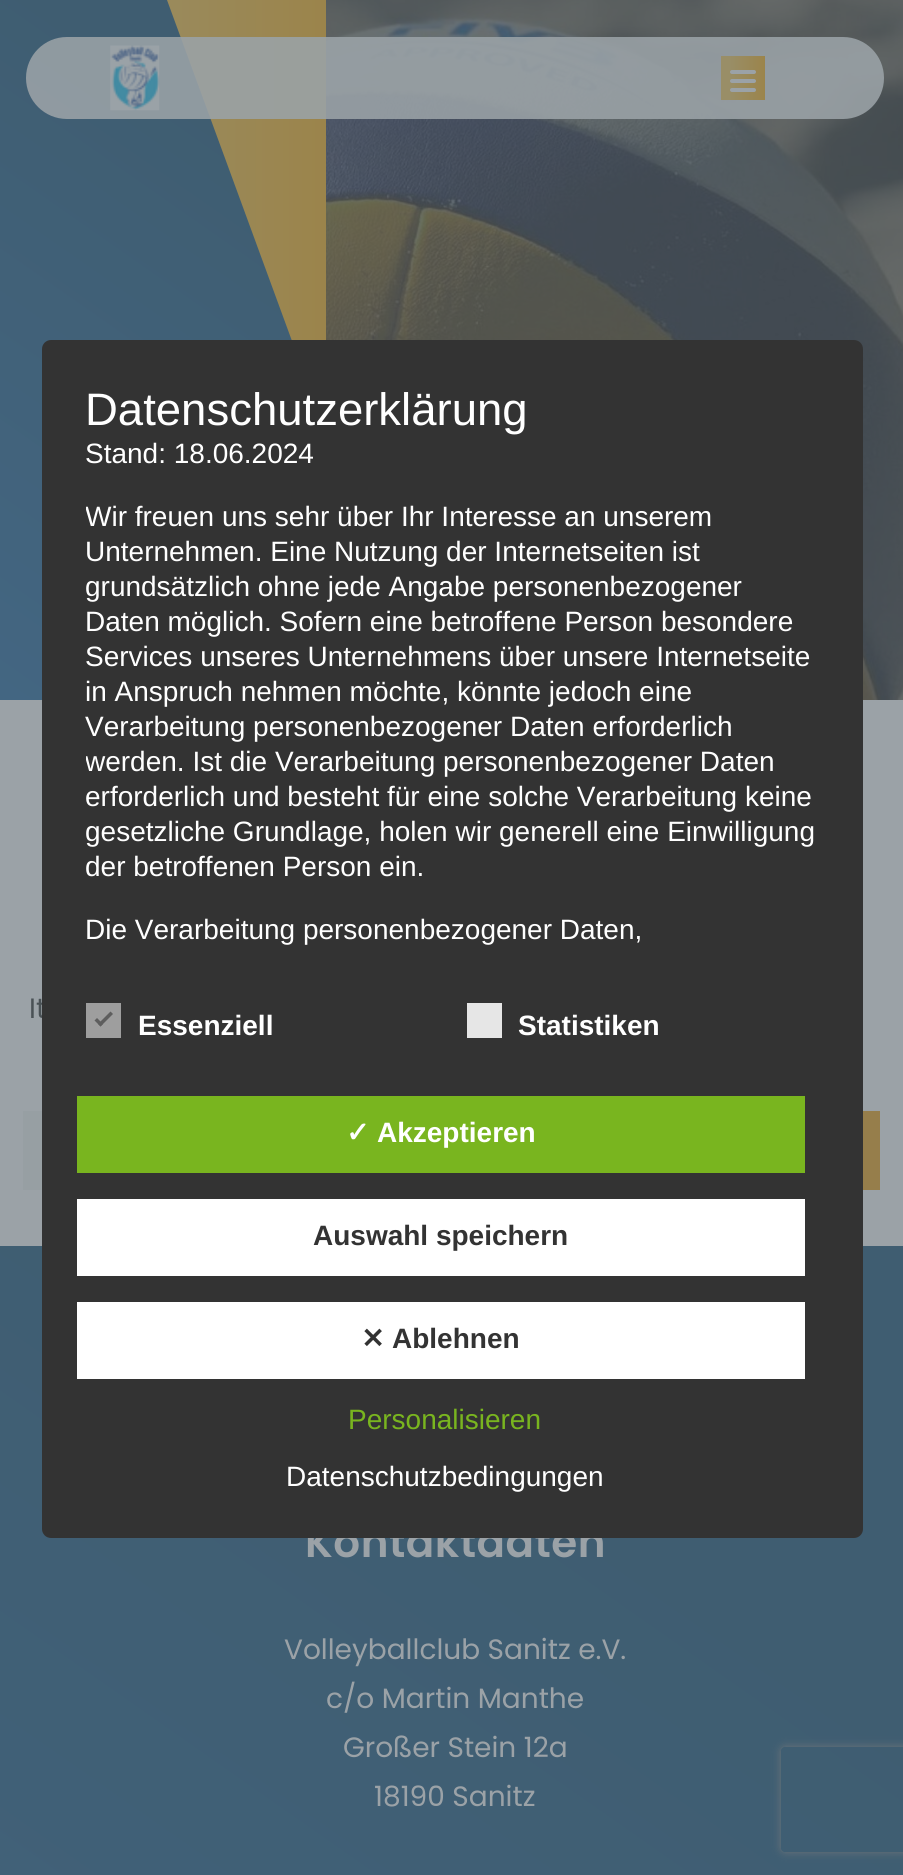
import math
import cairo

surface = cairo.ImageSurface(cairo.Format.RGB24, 903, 1875)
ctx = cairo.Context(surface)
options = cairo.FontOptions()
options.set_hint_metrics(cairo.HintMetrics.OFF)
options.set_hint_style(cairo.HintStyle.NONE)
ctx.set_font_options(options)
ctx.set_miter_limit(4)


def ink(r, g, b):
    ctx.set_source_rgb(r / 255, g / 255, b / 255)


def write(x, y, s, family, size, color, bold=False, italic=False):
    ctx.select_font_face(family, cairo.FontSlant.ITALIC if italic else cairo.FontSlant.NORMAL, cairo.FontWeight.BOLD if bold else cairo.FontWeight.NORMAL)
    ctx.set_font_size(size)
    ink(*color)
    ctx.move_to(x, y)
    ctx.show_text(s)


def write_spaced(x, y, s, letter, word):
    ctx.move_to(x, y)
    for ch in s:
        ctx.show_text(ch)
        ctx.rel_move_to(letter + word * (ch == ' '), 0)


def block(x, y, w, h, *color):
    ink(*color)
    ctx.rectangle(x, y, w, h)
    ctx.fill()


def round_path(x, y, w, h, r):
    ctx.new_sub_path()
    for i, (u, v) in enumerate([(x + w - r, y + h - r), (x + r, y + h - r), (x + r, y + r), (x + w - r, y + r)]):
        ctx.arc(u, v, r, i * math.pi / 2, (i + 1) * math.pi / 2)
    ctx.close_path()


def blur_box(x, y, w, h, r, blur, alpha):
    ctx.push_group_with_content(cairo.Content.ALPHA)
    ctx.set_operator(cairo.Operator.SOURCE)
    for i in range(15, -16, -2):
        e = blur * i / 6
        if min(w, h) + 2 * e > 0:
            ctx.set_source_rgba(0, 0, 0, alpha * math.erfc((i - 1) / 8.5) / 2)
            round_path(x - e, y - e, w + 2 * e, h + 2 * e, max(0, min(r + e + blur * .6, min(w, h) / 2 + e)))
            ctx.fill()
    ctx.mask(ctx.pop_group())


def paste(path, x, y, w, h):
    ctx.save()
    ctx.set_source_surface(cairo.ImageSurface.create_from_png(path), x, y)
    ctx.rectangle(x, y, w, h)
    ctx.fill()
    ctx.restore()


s1 = dict(family="Poppins", size=28, color=(74, 82, 86))
s2 = dict(family="Liberation Sans", size=45.5, color=(255, 255, 255))
s3 = dict(family="Liberation Sans", size=28, color=(255, 255, 255))
s4 = dict(family="Liberation Sans", size=28, color=(255, 255, 255), bold=True)
s5 = dict(family="DejaVu Sans", size=28, color=(255, 255, 255), bold=True)
s6 = dict(family="Liberation Sans", size=28, color=(51, 51, 51), bold=True)
s7 = dict(family="DejaVu Sans", size=28, color=(51, 51, 51), bold=True)
s8 = dict(family="Liberation Sans", size=28, color=(121, 181, 31))
s9 = dict(family="Poppins", size=28, color=(155, 162, 167))

ink(155, 162, 167)
ctx.paint()
paste("pic2.png", 326, 0, 577, 700)
gradient = cairo.LinearGradient(0, 350, 326, 350)
gradient.add_color_stop_rgba(0.19, 0.6, 0.557, 0.404, 1)
gradient.add_color_stop_rgba(1, 0.608, 0.518, 0.294, 1)
ctx.set_source(gradient)
ctx.rectangle(167, 0, 159, 340)
ctx.fill()
gradient = cairo.LinearGradient(359, 46, -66, 654)
gradient.add_color_stop_rgba(0.19, 0.247, 0.365, 0.443, 1)
gradient.add_color_stop_rgba(1, 0.263, 0.4, 0.51, 1)
ctx.set_source(gradient)
ctx.new_path()
ctx.move_to(0, 0)
ctx.line_to(0, 700)
ctx.line_to(199, 700)
ctx.line_to(292, 345)
ctx.line_to(292, 341)
ctx.line_to(167, 0)
ctx.close_path()
ctx.fill()
write(29, 1018, "It", **s1)
gradient = cairo.LinearGradient(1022, 1330, -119, 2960)
gradient.add_color_stop_rgba(0.19, 0.247, 0.365, 0.443, 1)
gradient.add_color_stop_rgba(1, 0.263, 0.4, 0.51, 1)
ctx.set_source(gradient)
ctx.rectangle(0, 1246, 903, 629)
ctx.fill()
ctx.select_font_face("Poppins SemiBold")
ctx.set_font_size(42)
ink(155, 162, 167)
write_spaced(305, 1557, "Kontaktdaten", 0.5, 0)
ink(51, 51, 51)
round_path(42, 340, 821, 1198, 9)
ctx.fill()
write(85, 425, "Datenschutzerklärung", **s2)
write(85, 463, "Stand: 18.06.2024", **s3)
ctx.save()
ctx.rectangle(86, 383, 751, 564)
ctx.clip()
write(85, 526, "Wir freuen uns sehr über Ihr Interesse an unserem", **s3)
ctx.restore()
write(85, 561, "Unternehmen. Eine Nutzung der Internetseiten ist", **s3)
write(85, 596, "grundsätzlich ohne jede Angabe personenbezogener", **s3)
write(85, 631, "Daten möglich. Sofern eine betroffene Person besondere", **s3)
write(85, 666, "Services unseres Unternehmens über unsere Internetseite", **s3)
write(85, 701, "in Anspruch nehmen möchte, könnte jedoch eine", **s3)
write(85, 736, "Verarbeitung personenbezogener Daten erforderlich", **s3)
ctx.save()
ctx.rectangle(86, 383, 751, 564)
ctx.clip()
write(85, 771, "werden. Ist die Verarbeitung personenbezogener Daten", **s3)
ctx.restore()
write(85, 806, "erforderlich und besteht für eine solche Verarbeitung keine", **s3)
write(85, 841, "gesetzliche Grundlage, holen wir generell eine Einwilligung", **s3)
write(85, 876, "der betroffenen Person ein.", **s3)
write(85, 939, "Die Verarbeitung personenbezogener Daten,", **s3)
block(86, 1003, 35, 35, 158, 158, 158)
ink(94, 94, 94)
ctx.new_path()
ctx.move_to(110.5, 1011.5)
ctx.line_to(113, 1014)
ctx.line_to(100.5, 1026.5)
ctx.line_to(98, 1024)
ctx.close_path()
ctx.fill()
ctx.new_path()
ctx.move_to(97, 1018)
ctx.line_to(103, 1024)
ctx.line_to(100.5, 1026.5)
ctx.line_to(94.5, 1020.5)
ctx.close_path()
ctx.fill()
write(138, 1035, "Essenziell", **s4)
block(467, 1003, 35, 35, 230, 230, 230)
write(518, 1035, "Statistiken", **s4)
block(77, 1096, 728, 77, 121, 181, 31)
write(346, 1142, "✓", **s5)
write(377, 1142, "Akzeptieren", **s4)
block(77, 1199, 728, 77, 255, 255, 255)
write(313, 1245, "Auswahl speichern", **s6)
block(77, 1302, 728, 77, 255, 255, 255)
write(361, 1348, "✕", **s7)
write(392, 1348, "Ablehnen", **s6)
write(348, 1429, "Personalisieren", **s8)
write(286, 1486, "Datenschutzbedingungen", **s3)
ctx.set_source_rgba(0.608, 0.635, 0.655, 0.88)
round_path(26, 37, 858, 82, 41)
ctx.fill()
paste("pic1.png", 110, 45, 50, 66)
gradient = cairo.LinearGradient(721, 78, 765, 78)
gradient.add_color_stop_rgba(0.19, 0.6, 0.557, 0.404, 1)
gradient.add_color_stop_rgba(1, 0.608, 0.518, 0.294, 1)
ctx.set_source(gradient)
ctx.rectangle(721, 56, 44, 44)
ctx.fill()
ink(155, 162, 167)
round_path(730, 79, 26, 4, 2)
ctx.fill()
round_path(730, 70, 26, 4, 2)
ctx.fill()
round_path(730, 88, 26, 4, 2)
ctx.fill()
block(23, 1111, 19, 79, 151, 159, 163)
block(863, 1111, 17, 79, 150, 126, 75)
write(284, 1659, "Volleyballclub Sanitz e.V.", **s9)
write(326, 1708, "c/o Martin Manthe", **s9)
write(343, 1757, "Großer Stein 12a", **s9)
write(374, 1806, "18190 Sanitz", **s9)
ctx.save()
ctx.set_fill_rule(cairo.FillRule.EVEN_ODD)
ctx.new_path()
ctx.move_to(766, 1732)
ctx.line_to(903, 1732)
ctx.line_to(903, 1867)
ctx.line_to(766, 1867)
ctx.close_path()
ctx.move_to(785, 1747)
ctx.line_to(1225, 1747)
ctx.curve_to(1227, 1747, 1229, 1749, 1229, 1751)
ctx.line_to(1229, 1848)
ctx.curve_to(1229, 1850, 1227, 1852, 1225, 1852)
ctx.line_to(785, 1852)
ctx.curve_to(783, 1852, 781, 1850, 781, 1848)
ctx.line_to(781, 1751)
ctx.curve_to(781, 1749, 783, 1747, 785, 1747)
ctx.close_path()
ctx.clip()
ink(109, 116, 121)
blur_box(781, 1747, 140, 105, 4, 4.5, 1)
ctx.restore()
surface.write_to_png("screenshot.png")
